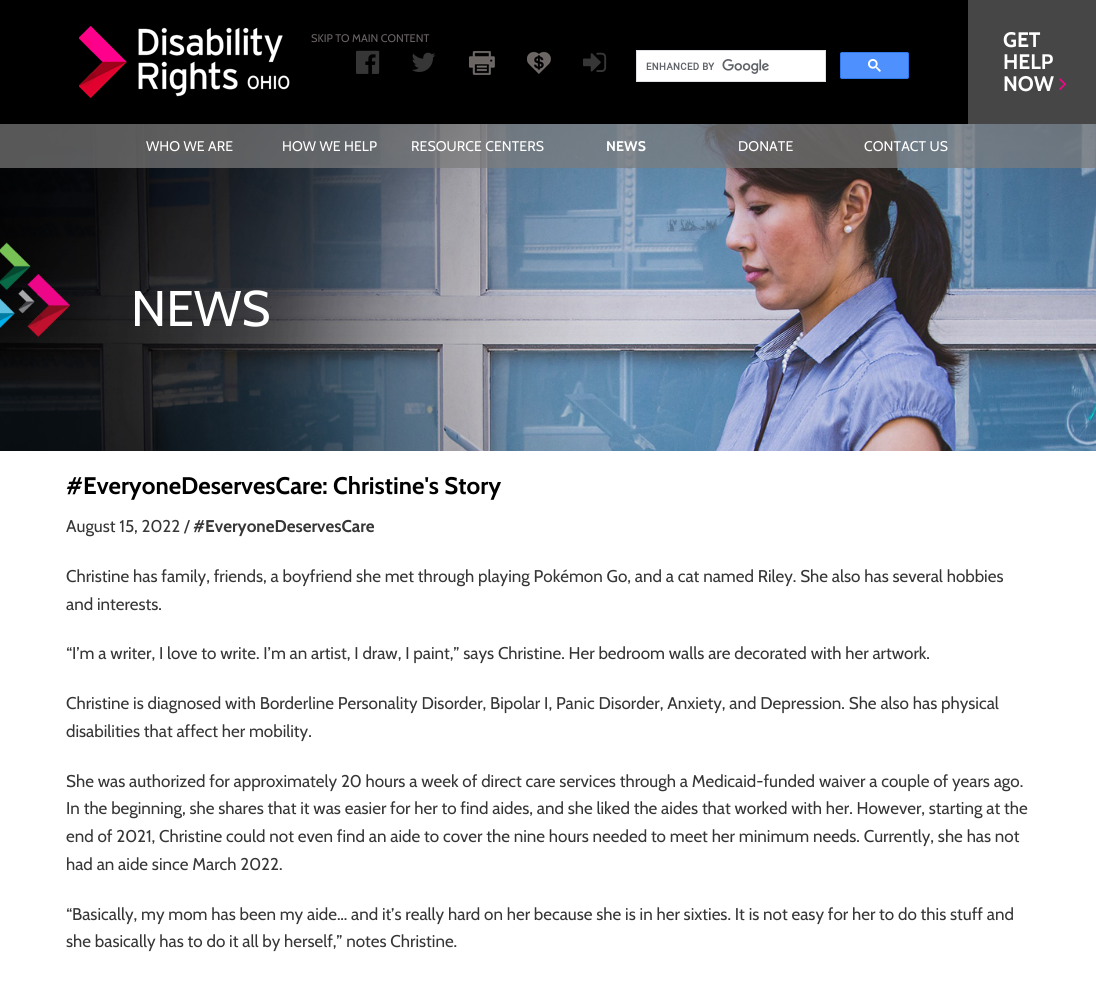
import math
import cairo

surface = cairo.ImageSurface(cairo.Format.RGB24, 1096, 986)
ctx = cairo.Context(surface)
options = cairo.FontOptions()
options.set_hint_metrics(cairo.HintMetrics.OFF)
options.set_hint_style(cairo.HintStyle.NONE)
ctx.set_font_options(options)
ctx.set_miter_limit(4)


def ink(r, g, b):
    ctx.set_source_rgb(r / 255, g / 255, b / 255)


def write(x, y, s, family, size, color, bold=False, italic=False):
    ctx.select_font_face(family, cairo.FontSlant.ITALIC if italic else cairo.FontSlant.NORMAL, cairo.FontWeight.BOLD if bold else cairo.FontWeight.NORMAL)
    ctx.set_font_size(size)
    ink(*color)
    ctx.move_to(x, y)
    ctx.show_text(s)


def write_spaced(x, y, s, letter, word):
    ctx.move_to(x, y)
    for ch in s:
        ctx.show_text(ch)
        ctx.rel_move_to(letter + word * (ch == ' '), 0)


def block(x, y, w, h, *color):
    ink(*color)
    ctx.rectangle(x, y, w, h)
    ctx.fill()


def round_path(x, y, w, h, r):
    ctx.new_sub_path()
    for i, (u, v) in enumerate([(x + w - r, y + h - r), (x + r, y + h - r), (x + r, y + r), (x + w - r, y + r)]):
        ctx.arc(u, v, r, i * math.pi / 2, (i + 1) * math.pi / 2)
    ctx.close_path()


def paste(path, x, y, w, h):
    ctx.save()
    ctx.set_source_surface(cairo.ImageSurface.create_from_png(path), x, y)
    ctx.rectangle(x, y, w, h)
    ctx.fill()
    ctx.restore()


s1 = dict(family="Cabin", size=11, color=(107, 101, 100))
s2 = dict(family="Cabin", size=21, color=(255, 255, 255), bold=True)
s3 = dict(family="Cabin", size=50, color=(255, 255, 255))
s4 = dict(family="Cabin", size=24, color=(0, 0, 0), bold=True)
s5 = dict(family="Cabin", size=17, color=(54, 54, 54))
s6 = dict(family="Cabin", size=17, color=(54, 54, 54), bold=True)

ink(255, 255, 255)
ctx.paint()
block(0, 0, 968, 124, 0, 0, 0)
paste("pic1.png", 79, 26, 211, 72)
write(311, 42, "SKIP TO MAIN CONTENT", **s1)
paste("pic2.png", 356, 50, 24, 24)
paste("pic3.png", 412, 52, 24, 20)
paste("pic4.png", 469, 51, 26, 24)
paste("pic5.png", 527, 51, 24, 23)
paste("pic6.png", 583, 52, 24, 20)
ink(255, 255, 255)
ctx.rectangle(636.5, 50.5, 189, 31)
ctx.fill_preserve()
ink(223, 225, 229)
ctx.set_line_width(1)
ctx.stroke()
paste("pic7.png", 646, 59, 123, 15)
ink(77, 144, 254)
round_path(840.5, 52.5, 68, 26, 1.5)
ctx.fill_preserve()
ink(48, 121, 237)
ctx.stroke()
paste("pic8.png", 868, 59, 13, 13)
block(968, 0, 128, 124, 70, 70, 70)
write(1003, 47, "GET", **s2)
write(1003, 69, "HELP", **s2)
write(1003, 91, "NOW", **s2)
paste("pic9.png", 1059, 78, 7, 12)
paste("pic10.png", 0, 124, 1096, 327)
ctx.set_source_rgba(0.49, 0.49, 0.49, 0.7)
ctx.rectangle(0, 124, 1096, 44)
ctx.fill()
ctx.select_font_face("Cabin")
ctx.set_font_size(14)
ink(255, 255, 255)
write_spaced(146, 151, "WHO WE ARE", 0.1, 0)
write_spaced(282, 151, "HOW WE HELP", 0.1, 0)
write_spaced(411, 151, "RESOURCE CENTERS", 0.1, 0)
ctx.select_font_face("Cabin", cairo.FontSlant.NORMAL, cairo.FontWeight.BOLD)
write_spaced(606, 151, "NEWS", 0.1, 0)
ctx.select_font_face("Cabin")
write_spaced(738, 151, "DONATE", 0.1, 0)
write_spaced(864, 151, "CONTACT US", 0.1, 0)
paste("pic11.png", 0, 242, 70, 95)
write(131, 326, "NEWS", **s3)
write(66, 494, "#EveryoneDeservesCare: Christine's Story", **s4)
write(66, 532, "August 15, 2022 /", **s5)
write(193, 532, "#EveryoneDeservesCare", **s6)
write(66, 582, "Christine has family, friends, a boyfriend she met through playing Pokémon Go, and a cat named Riley. She also has several hobbies", **s5)
write(66, 610, "and interests.", **s5)
write(66, 659, "“I’m a writer, I love to write. I’m an artist, I draw, I paint,” says Christine. Her bedroom walls are decorated with her artwork.", **s5)
write(66, 709, "Christine is diagnosed with Borderline Personality Disorder, Bipolar I, Panic Disorder, Anxiety, and Depression. She also has physical", **s5)
write(66, 737, "disabilities that affect her mobility.", **s5)
write(66, 787, "She was authorized for approximately 20 hours a week of direct care services through a Medicaid-funded waiver a couple of years ago.", **s5)
write(66, 814, "In the beginning, she shares that it was easier for her to find aides, and she liked the aides that worked with her. However, starting at the", **s5)
write(66, 842, "end of 2021, Christine could not even find an aide to cover the nine hours needed to meet her minimum needs. Currently, she has not", **s5)
write(66, 870, "had an aide since March 2022.", **s5)
write(66, 920, "“Basically, my mom has been my aide… and it’s really hard on her because she is in her sixties. It is not easy for her to do this stuff and", **s5)
write(66, 947, "she basically has to do it all by herself,” notes Christine.", **s5)
surface.write_to_png("screenshot.png")
